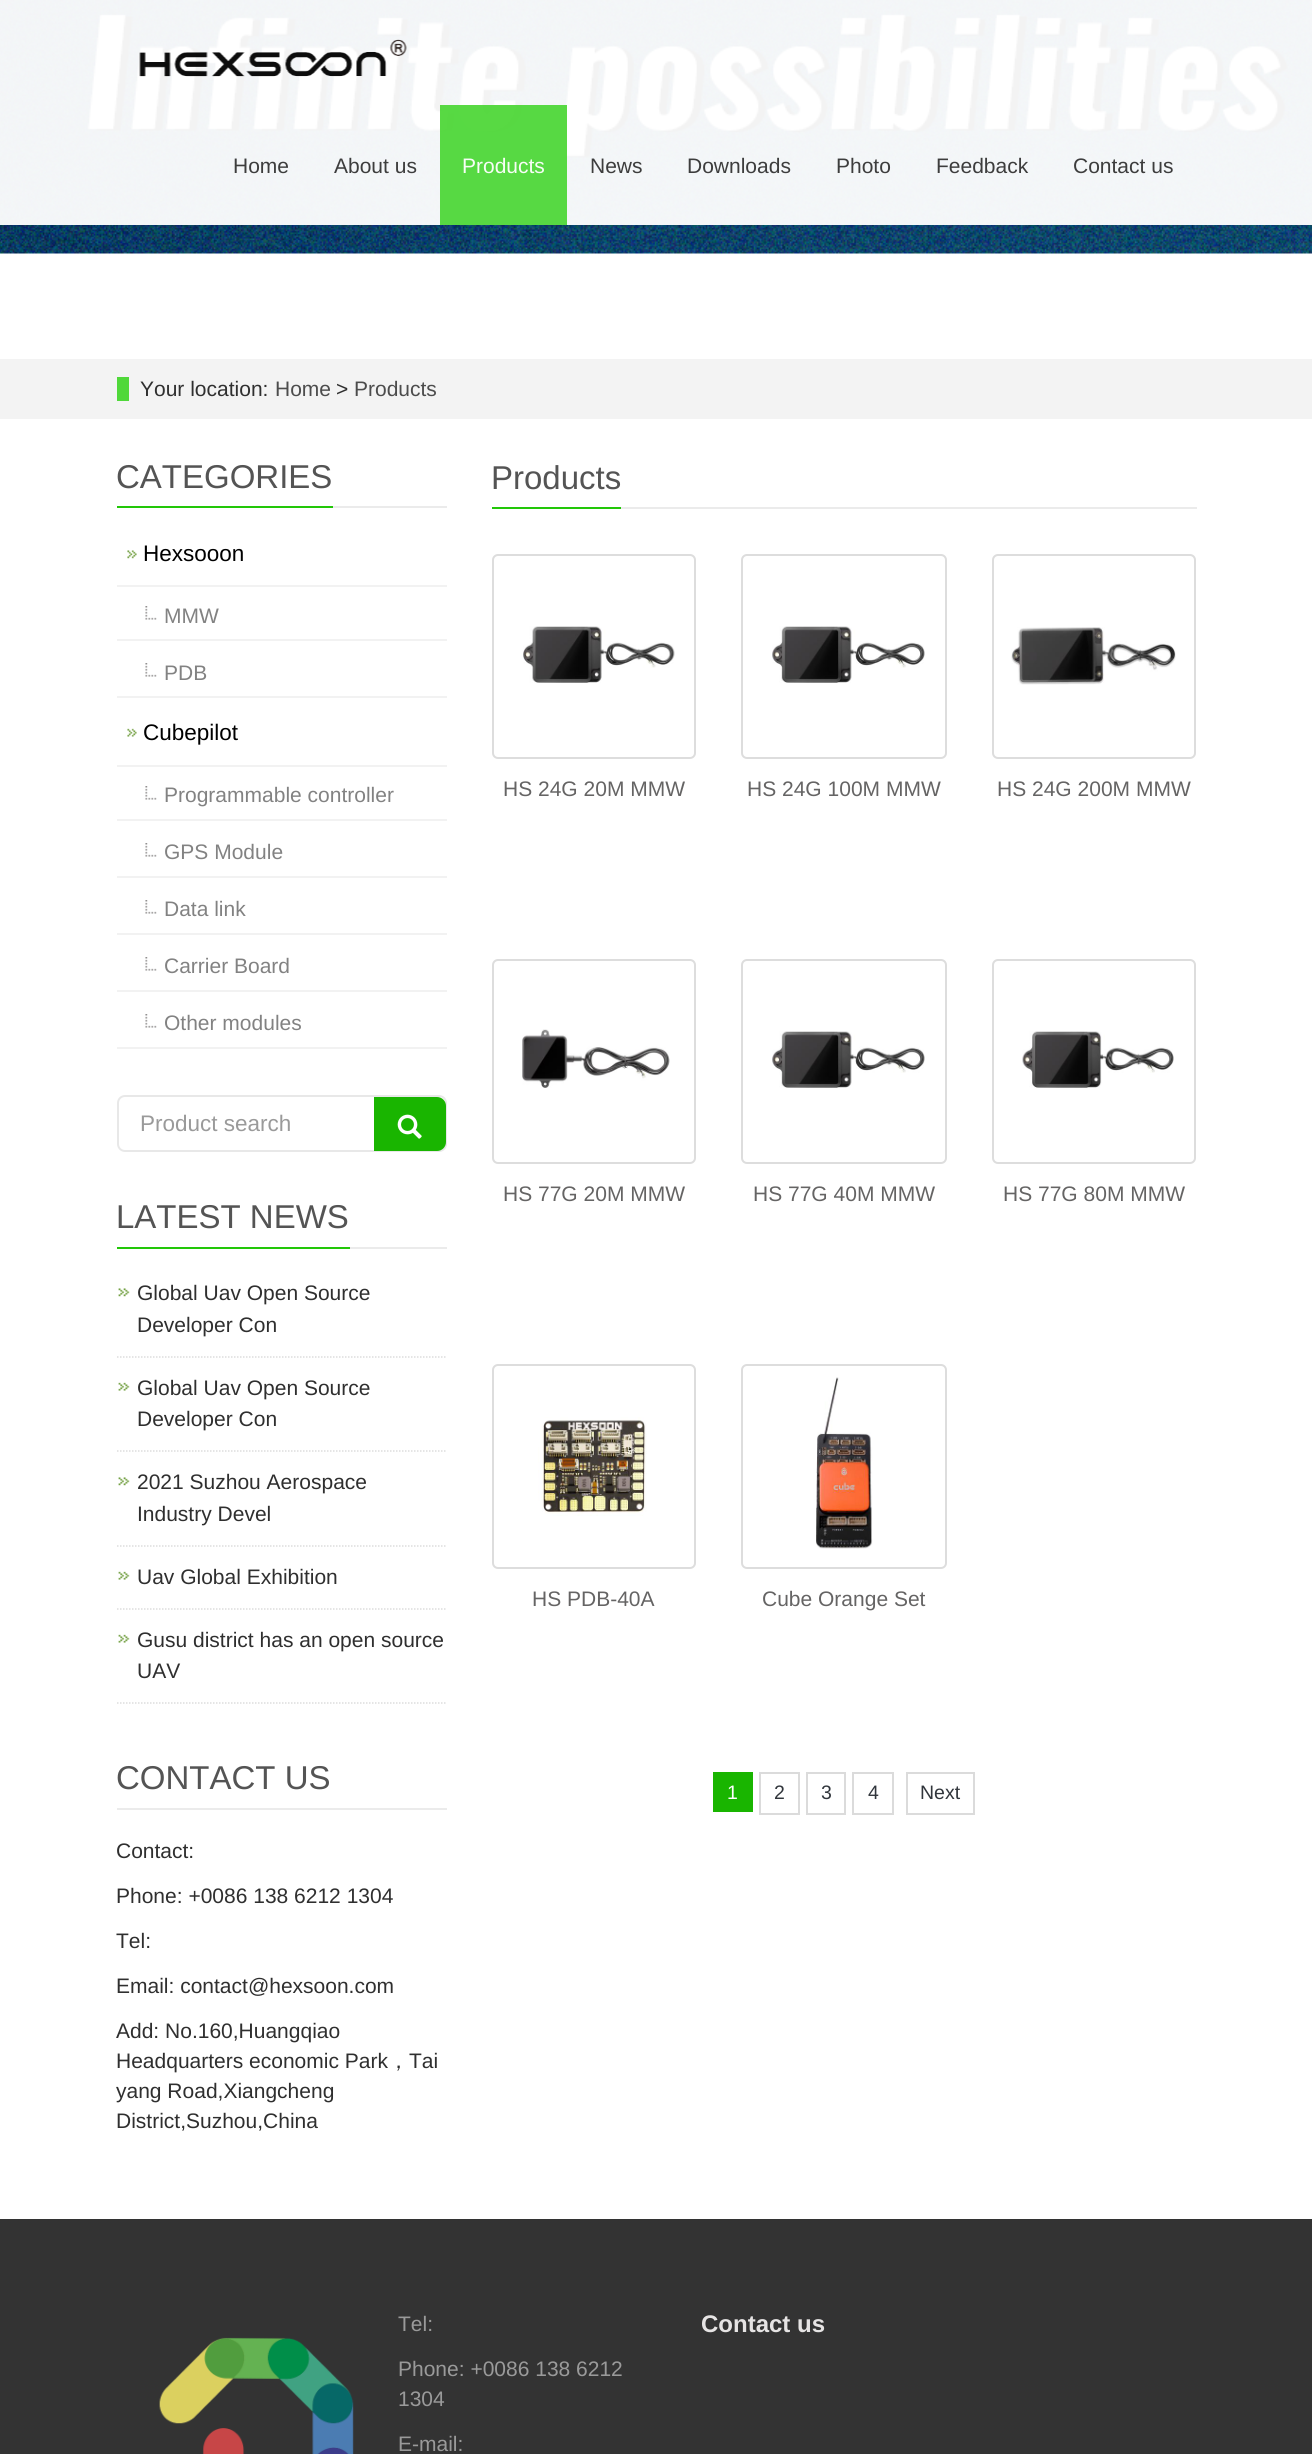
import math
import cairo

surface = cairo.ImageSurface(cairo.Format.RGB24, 1312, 2454)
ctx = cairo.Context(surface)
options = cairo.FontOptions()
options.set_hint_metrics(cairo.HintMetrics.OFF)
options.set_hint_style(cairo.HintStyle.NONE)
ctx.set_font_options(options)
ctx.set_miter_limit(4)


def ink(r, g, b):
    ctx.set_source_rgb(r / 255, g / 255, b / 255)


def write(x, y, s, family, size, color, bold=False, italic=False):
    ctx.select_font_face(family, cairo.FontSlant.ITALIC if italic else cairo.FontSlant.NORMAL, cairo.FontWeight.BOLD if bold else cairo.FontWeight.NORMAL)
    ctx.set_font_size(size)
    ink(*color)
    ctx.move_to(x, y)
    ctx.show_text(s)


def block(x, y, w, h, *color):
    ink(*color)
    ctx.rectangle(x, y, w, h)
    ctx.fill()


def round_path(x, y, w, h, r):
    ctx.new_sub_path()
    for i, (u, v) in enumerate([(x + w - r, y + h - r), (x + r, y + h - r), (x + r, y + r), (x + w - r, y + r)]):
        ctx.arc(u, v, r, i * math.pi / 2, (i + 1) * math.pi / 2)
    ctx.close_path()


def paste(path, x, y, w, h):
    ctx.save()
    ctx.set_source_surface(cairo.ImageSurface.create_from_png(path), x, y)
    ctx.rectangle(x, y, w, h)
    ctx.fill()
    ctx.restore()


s1 = dict(family="Liberation Sans", size=21, color=(61, 61, 61))
s2 = dict(family="Liberation Sans", size=21, color=(247, 253, 246))
s3 = dict(family="Liberation Sans", size=21, color=(47, 47, 47))
s4 = dict(family="Liberation Sans", size=21, color=(76, 76, 76))
s5 = dict(family="Liberation Sans", size=33, color=(84, 84, 84))
s6 = dict(family="Liberation Sans", size=22.5, color=(0, 0, 0))
s7 = dict(family="Liberation Sans", size=21, color=(130, 130, 130))
s8 = dict(family="Liberation Sans", size=22.5, color=(154, 154, 154))
s9 = dict(family="WenQuanYi Zen Hei Medium", size=21, color=(47, 47, 47))
s10 = dict(family="Liberation Sans", size=21, color=(101, 100, 100))
s11 = dict(family="Liberation Sans", size=19.5, color=(255, 255, 255))
s12 = dict(family="Liberation Sans", size=19.5, color=(49, 54, 60))
s13 = dict(family="Liberation Sans", size=21, color=(154, 154, 154))
s14 = dict(family="Liberation Sans", size=24, color=(230, 228, 228), bold=True)

ink(255, 255, 255)
ctx.paint()
paste("pic1.png", 0, 0, 1312, 254)
ctx.set_source_rgba(1, 1, 1, 0.95)
ctx.rectangle(0, 0, 1312, 225)
ctx.fill()
paste("pic2.png", 139, 39, 268, 38)
write(233, 173, "Home", **s1)
write(334, 173, "About us", **s1)
ctx.set_source_rgba(0.314, 0.847, 0.227, 0.95)
ctx.rectangle(440, 105, 127, 120)
ctx.fill()
write(462, 173, "Products", **s2)
write(590, 173, "News", **s1)
write(687, 173, "Downloads", **s1)
write(836, 173, "Photo", **s1)
write(936, 173, "Feedback", **s1)
write(1073, 173, "Contact us", **s1)
block(0, 359, 1312, 60, 243, 243, 243)
write(140, 396, "Your location:", **s3)
block(117, 377, 12, 24, 80, 216, 58)
write(275, 396, "Home", **s4)
write(336, 396, ">", **s3)
write(354, 396, "Products", **s4)
block(333, 506, 114, 2, 235, 235, 235)
block(117, 506, 216, 2, 34, 199, 8)
write(116, 488, "CATEGORIES", **s5)
paste("pic3.png", 127, 550, 10, 9)
block(117, 585, 330, 2, 242, 242, 242)
write(143, 561, "Hexsooon", **s6)
paste("pic4.png", 145, 606, 12, 14)
block(117, 639, 330, 2, 242, 242, 242)
write(164, 623, "MMW", **s7)
paste("pic4.png", 145, 663, 12, 14)
block(117, 696, 330, 2, 242, 242, 242)
write(164, 680, "PDB", **s7)
paste("pic5.png", 127, 728, 10, 9)
block(117, 765, 330, 2, 242, 242, 242)
write(143, 740, "Cubepilot", **s6)
paste("pic4.png", 145, 786, 12, 14)
block(117, 819, 330, 2, 242, 242, 242)
write(164, 802, "Programmable controller", **s7)
paste("pic4.png", 145, 843, 12, 14)
block(117, 876, 330, 2, 242, 242, 242)
write(164, 859, "GPS Module", **s7)
paste("pic4.png", 145, 900, 12, 14)
block(117, 933, 330, 2, 242, 242, 242)
write(164, 916, "Data link", **s7)
paste("pic4.png", 145, 957, 12, 14)
block(117, 990, 330, 2, 242, 242, 242)
write(164, 973, "Carrier Board", **s7)
paste("pic4.png", 145, 1014, 12, 14)
block(117, 1047, 330, 2, 242, 242, 242)
write(164, 1030, "Other modules", **s7)
round_path(118, 1096, 328, 55, 7)
ink(232, 232, 232)
ctx.stroke()
write(140, 1131, "Product search", **s8)
ink(25, 181, 0)
ctx.new_path()
ctx.move_to(374, 1097)
ctx.line_to(437, 1097)
ctx.curve_to(442, 1097, 446, 1101, 446, 1106)
ctx.line_to(446, 1142)
ctx.curve_to(446, 1147, 442, 1151, 437, 1151)
ctx.line_to(374, 1151)
ctx.close_path()
ctx.fill()
paste("pic6.png", 397, 1114, 25, 25)
block(350, 1247, 97, 2, 235, 235, 235)
block(117, 1247, 233, 2, 34, 199, 8)
write(116, 1228, "LATEST NEWS", **s5)
paste("pic7.png", 118, 1288, 12, 9)
ctx.new_path()
ctx.move_to(117, 1357)
ctx.line_to(447, 1357)
ink(221, 221, 221)
ctx.set_line_width(1.5)
ctx.set_dash([1.5, 1.5])
ctx.stroke()
write(137, 1300, "Global Uav Open Source", **s3)
write(137, 1332, "Developer Con", **s3)
paste("pic8.png", 118, 1382, 12, 9)
ctx.new_path()
ctx.move_to(117, 1451)
ctx.line_to(447, 1451)
ink(221, 221, 221)
ctx.stroke()
write(137, 1395, "Global Uav Open Source", **s3)
write(137, 1426, "Developer Con", **s3)
paste("pic7.png", 118, 1477, 12, 9)
ctx.new_path()
ctx.move_to(117, 1546)
ctx.line_to(447, 1546)
ink(221, 221, 221)
ctx.stroke()
write(137, 1489, "2021 Suzhou Aerospace", **s3)
write(137, 1521, "Industry Devel", **s3)
paste("pic8.png", 118, 1571, 12, 9)
ctx.new_path()
ctx.move_to(117, 1609)
ctx.line_to(447, 1609)
ink(221, 221, 221)
ctx.stroke()
write(137, 1584, "Uav Global Exhibition", **s3)
paste("pic8.png", 118, 1634, 12, 9)
ctx.new_path()
ctx.move_to(117, 1703)
ctx.line_to(447, 1703)
ink(221, 221, 221)
ctx.stroke()
write(137, 1647, "Gusu district has an open source", **s3)
write(137, 1678, "UAV", **s3)
block(117, 1808, 330, 2, 235, 235, 235)
write(116, 1789, "CONTACT US", **s5)
write(116, 1858, "Contact:", **s3)
write(116, 1903, "Phone: +0086 138 6212 1304", **s3)
write(116, 1948, "Tel:", **s3)
write(116, 1993, "Email: contact@hexsoon.com", **s3)
write(116, 2038, "Add: No.160,Huangqiao", **s3)
write(116, 2068, "Headquarters economic Park", **s3)
write(388, 2068, "，", **s9)
write(409, 2068, "Tai", **s3)
write(116, 2098, "yang Road,Xiangcheng", **s3)
write(116, 2128, "District,Suzhou,China", **s3)
block(621, 507, 576, 2, 235, 235, 235)
block(492, 507, 129, 2, 34, 199, 8)
write(491, 489, "Products", **s5)
round_path(493, 555, 202, 203, 5)
ink(221, 221, 221)
ctx.set_line_width(2)
ctx.set_dash([])
ctx.stroke()
paste("pic9.png", 523, 626, 152, 57)
write(503, 796, "HS 24G 20M MMW", **s10)
round_path(742, 555, 204, 203, 5)
ink(221, 221, 221)
ctx.stroke()
paste("pic10.png", 772, 626, 153, 57)
write(747, 796, "HS 24G 100M MMW", **s10)
round_path(993, 555, 202, 203, 5)
ink(221, 221, 221)
ctx.stroke()
paste("pic11.png", 1011, 627, 165, 58)
write(997, 796, "HS 24G 200M MMW", **s10)
round_path(493, 960, 202, 203, 5)
ink(221, 221, 221)
ctx.stroke()
paste("pic12.png", 522, 1029, 148, 59)
write(503, 1201, "HS 77G 20M MMW", **s10)
round_path(742, 960, 204, 203, 5)
ink(221, 221, 221)
ctx.stroke()
paste("pic10.png", 772, 1031, 153, 57)
write(753, 1201, "HS 77G 40M MMW", **s10)
round_path(993, 960, 202, 203, 5)
ink(221, 221, 221)
ctx.stroke()
paste("pic13.png", 1022, 1031, 152, 57)
write(1003, 1201, "HS 77G 80M MMW", **s10)
round_path(493, 1365, 202, 203, 5)
ink(221, 221, 221)
ctx.stroke()
paste("pic14.png", 538, 1417, 109, 99)
write(532, 1606, "HS PDB-40A", **s10)
round_path(742, 1365, 204, 203, 5)
ink(221, 221, 221)
ctx.stroke()
paste("pic15.png", 816, 1377, 57, 172)
write(762, 1606, "Cube Orange Set", **s10)
block(713, 1772, 40, 40, 25, 181, 0)
write(727, 1799, "1", **s11)
ctx.rectangle(760, 1773, 39, 41)
ink(219, 219, 219)
ctx.stroke()
write(774, 1799, "2", **s12)
ctx.rectangle(807, 1773, 38, 41)
ink(219, 219, 219)
ctx.stroke()
write(821, 1799, "3", **s12)
ctx.rectangle(853, 1773, 40, 41)
ink(219, 219, 219)
ctx.stroke()
write(868, 1799, "4", **s12)
ctx.rectangle(907, 1773, 67, 41)
ink(219, 219, 219)
ctx.stroke()
write(920, 1799, "Next", **s12)
block(0, 2219, 1312, 235, 51, 51, 51)
write(398, 2331, "Tel:", **s13)
write(398, 2376, "Phone: +0086 138 6212", **s13)
write(398, 2406, "1304", **s13)
write(398, 2451, "E-mail:", **s13)
write(701, 2332, "Contact us", **s14)
paste("pic16.png", 159, 2337, 195, 117)
surface.write_to_png("screenshot.png")
